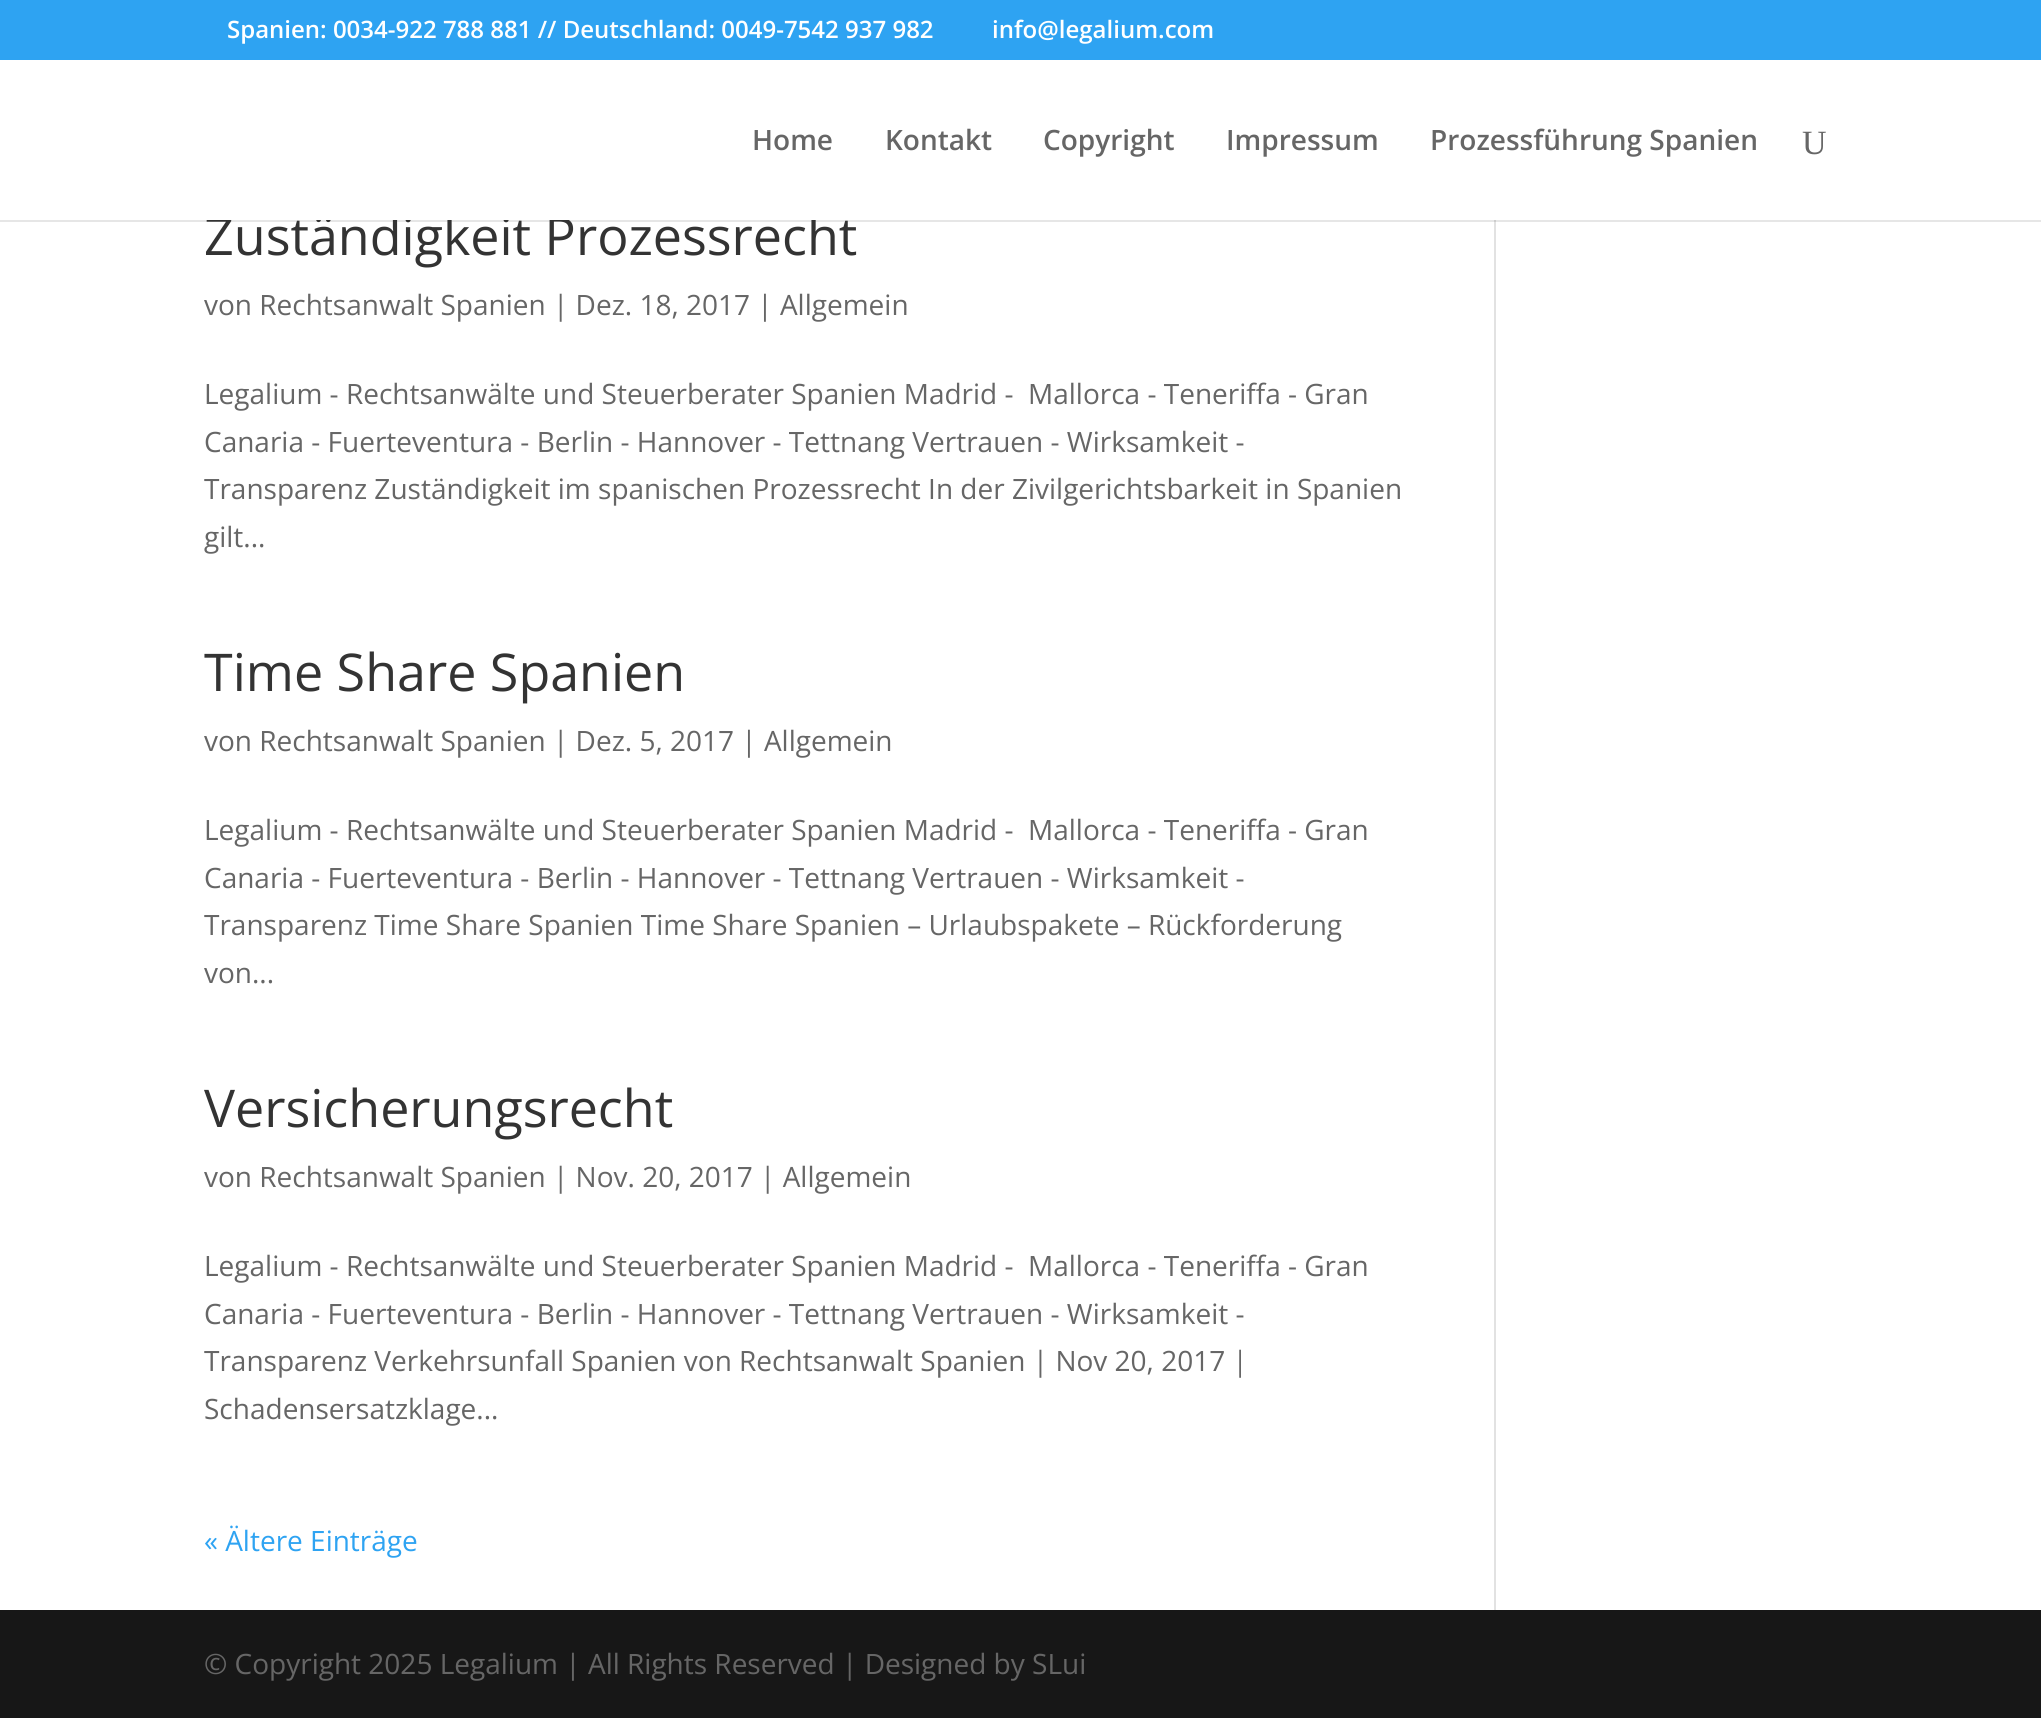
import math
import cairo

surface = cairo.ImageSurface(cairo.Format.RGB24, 2041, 1718)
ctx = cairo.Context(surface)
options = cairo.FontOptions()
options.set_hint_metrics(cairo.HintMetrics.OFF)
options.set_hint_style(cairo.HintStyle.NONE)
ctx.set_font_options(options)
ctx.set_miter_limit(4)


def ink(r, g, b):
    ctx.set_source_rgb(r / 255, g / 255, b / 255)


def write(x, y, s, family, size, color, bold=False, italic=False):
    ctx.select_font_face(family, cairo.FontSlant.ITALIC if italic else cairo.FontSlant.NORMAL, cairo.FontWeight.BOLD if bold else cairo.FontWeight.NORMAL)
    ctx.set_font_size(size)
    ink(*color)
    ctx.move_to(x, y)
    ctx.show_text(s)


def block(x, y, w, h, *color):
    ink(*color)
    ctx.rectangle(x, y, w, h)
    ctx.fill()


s1 = dict(family="Open Sans SemiBold", size=24, color=(255, 255, 255))
s2 = dict(family="Open Sans", size=52, color=(51, 51, 51))
s3 = dict(family="Open Sans SemiBold", size=28, color=(102, 102, 102))
s4 = dict(family="Liberation Serif", size=34, color=(102, 102, 102))
s5 = dict(family="Open Sans", size=28, color=(102, 102, 102))
s6 = dict(family="Open Sans", size=28, color=(46, 163, 242))

ink(255, 255, 255)
ctx.paint()
block(0, 0, 2041, 60, 46, 163, 242)
write(227, 38, "Spanien: 0034-922 788 881 // Deutschland: 0049-7542 937 982", **s1)
write(992, 38, "info@legalium.com", **s1)
block(1494, 220, 2, 1390, 226, 226, 226)
ctx.set_source_rgba(0, 0, 0, 0.1)
ctx.rectangle(0, 220, 2041, 2)
ctx.fill()
write(204, 255, "Zuständigkeit Prozessrecht", **s2)
block(206, 215, 610, 5, 255, 255, 255)
write(752, 150, "Home", **s3)
write(885, 150, "Kontakt", **s3)
write(1043, 150, "Copyright", **s3)
write(1226, 150, "Impressum", **s3)
write(1430, 150, "Prozessführung Spanien", **s3)
write(1802, 154, "U", **s4)
write(204, 315, "von Rechtsanwalt Spanien | Dez. 18, 2017 | Allgemein", **s5)
write(204, 404, "Legalium - Rechtsanwälte und Steuerberater Spanien Madrid -  Mallorca - Teneriffa - Gran", **s5)
write(204, 452, "Canaria - Fuerteventura - Berlin - Hannover - Tettnang Vertrauen - Wirksamkeit -", **s5)
write(204, 499, "Transparenz Zuständigkeit im spanischen Prozessrecht In der Zivilgerichtsbarkeit in Spanien", **s5)
write(204, 547, "gilt...", **s5)
write(204, 691, "Time Share Spanien", **s2)
write(204, 751, "von Rechtsanwalt Spanien | Dez. 5, 2017 | Allgemein", **s5)
write(204, 840, "Legalium - Rechtsanwälte und Steuerberater Spanien Madrid -  Mallorca - Teneriffa - Gran", **s5)
write(204, 888, "Canaria - Fuerteventura - Berlin - Hannover - Tettnang Vertrauen - Wirksamkeit -", **s5)
write(204, 935, "Transparenz Time Share Spanien Time Share Spanien – Urlaubspakete – Rückforderung", **s5)
write(204, 983, "von...", **s5)
write(204, 1127, "Versicherungsrecht", **s2)
write(204, 1187, "von Rechtsanwalt Spanien | Nov. 20, 2017 | Allgemein", **s5)
write(204, 1276, "Legalium - Rechtsanwälte und Steuerberater Spanien Madrid -  Mallorca - Teneriffa - Gran", **s5)
write(204, 1324, "Canaria - Fuerteventura - Berlin - Hannover - Tettnang Vertrauen - Wirksamkeit -", **s5)
write(204, 1371, "Transparenz Verkehrsunfall Spanien von Rechtsanwalt Spanien | Nov 20, 2017 |", **s5)
write(204, 1419, "Schadensersatzklage...", **s5)
write(204, 1551, "« Ältere Einträge", **s6)
block(0, 1610, 2041, 108, 23, 23, 23)
write(204, 1674, "© Copyright 2025 Legalium | All Rights Reserved | Designed by SLui", **s5)
surface.write_to_png("screenshot.png")
